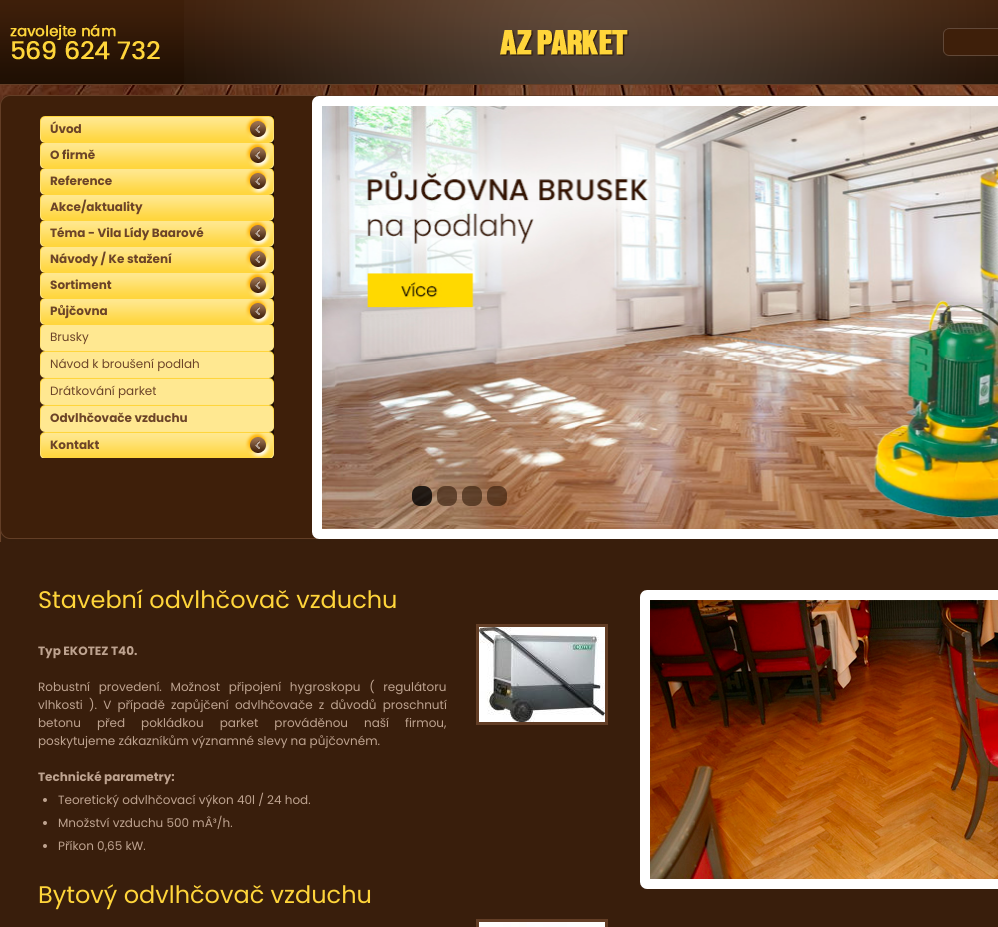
import math
import cairo

surface = cairo.ImageSurface(cairo.Format.RGB24, 998, 927)
ctx = cairo.Context(surface)
options = cairo.FontOptions()
options.set_hint_metrics(cairo.HintMetrics.OFF)
options.set_hint_style(cairo.HintStyle.NONE)
ctx.set_font_options(options)
ctx.set_miter_limit(4)


def ink(r, g, b):
    ctx.set_source_rgb(r / 255, g / 255, b / 255)


def write(x, y, s, family, size, color, bold=False, italic=False):
    ctx.select_font_face(family, cairo.FontSlant.ITALIC if italic else cairo.FontSlant.NORMAL, cairo.FontWeight.BOLD if bold else cairo.FontWeight.NORMAL)
    ctx.set_font_size(size)
    ink(*color)
    ctx.move_to(x, y)
    ctx.show_text(s)


def write_spaced(x, y, s, letter, word):
    ctx.move_to(x, y)
    for ch in s:
        ctx.show_text(ch)
        ctx.rel_move_to(letter + word * (ch == ' '), 0)


def block(x, y, w, h, *color):
    ink(*color)
    ctx.rectangle(x, y, w, h)
    ctx.fill()


def round_path(x, y, w, h, r):
    ctx.new_sub_path()
    for i, (u, v) in enumerate([(x + w - r, y + h - r), (x + r, y + h - r), (x + r, y + r), (x + w - r, y + r)]):
        ctx.arc(u, v, r, i * math.pi / 2, (i + 1) * math.pi / 2)
    ctx.close_path()


def paste(path, x, y, w, h):
    ctx.save()
    ctx.set_source_surface(cairo.ImageSurface.create_from_png(path), x, y)
    ctx.rectangle(x, y, w, h)
    ctx.fill()
    ctx.restore()


s1 = dict(family="Poppins", size=12, color=(108, 68, 40), bold=True)
s2 = dict(family="Poppins", size=12, color=(108, 68, 40))
s3 = dict(family="Poppins", size=24, color=(255, 213, 58))
s4 = dict(family="Poppins", size=12, color=(190, 163, 144), bold=True)
s5 = dict(family="Poppins", size=12, color=(190, 163, 144))

ink(255, 255, 255)
ctx.paint()
paste("pic1.png", 0, 85, 998, 457)
paste("pic2.png", 0, 0, 998, 85)
paste("pic3.png", 184, 0, 814, 84)
paste("pic4.png", 10, 24, 150, 36)
paste("pic5.png", 500, 30, 129, 26)
paste("pic6.png", 943, 28, 55, 28)
paste("pic7.png", 0, 95, 998, 447)
ink(62, 31, 10)
ctx.new_path()
ctx.move_to(10, 95.5)
ctx.line_to(316.5, 95.5)
ctx.line_to(316.5, 538.5)
ctx.line_to(10, 538.5)
ctx.curve_to(5, 538.5, 0.5, 534, 0.5, 529)
ctx.line_to(0.5, 105)
ctx.curve_to(0.5, 100, 5, 95.5, 10, 95.5)
ctx.close_path()
ctx.fill_preserve()
ink(99, 62, 38)
ctx.set_line_width(1)
ctx.stroke()
paste("pic8.png", 40, 116, 234, 26)
write(50, 133, "Úvod", **s1)
paste("pic8.png", 40, 142, 234, 26)
write(50, 159, "O firmě", **s1)
paste("pic8.png", 40, 168, 234, 26)
write(50, 185, "Reference", **s1)
paste("pic9.png", 40, 194, 234, 26)
write(50, 211, "Akce/aktuality", **s1)
paste("pic8.png", 40, 220, 234, 26)
write(50, 237, "Téma - Vila Lídy Baarové", **s1)
paste("pic8.png", 40, 246, 234, 26)
write(50, 263, "Návody / Ke stažení", **s1)
paste("pic8.png", 40, 272, 234, 26)
write(50, 289, "Sortiment", **s1)
paste("pic8.png", 40, 298, 234, 26)
write(50, 315, "Půjčovna", **s1)
paste("pic10.png", 40, 324, 234, 27)
write(50, 341, "Brusky", **s2)
paste("pic10.png", 40, 351, 234, 27)
write(50, 368, "Návod k broušení podlah", **s2)
paste("pic10.png", 40, 378, 234, 27)
write(50, 395, "Drátkování parket", **s2)
paste("pic10.png", 40, 405, 234, 27)
write(50, 422, "Odvlhčovače vzduchu", **s1)
paste("pic8.png", 40, 432, 234, 26)
write(50, 449, "Kontakt", **s1)
round_path(317, 101, 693, 433, 2)
ink(255, 255, 255)
ctx.set_line_width(10)
ctx.stroke()
paste("pic11.png", 322, 106, 676, 423)
ctx.set_source_rgba(0, 0, 0, 0.8)
round_path(412, 486, 20, 20, 8)
ctx.fill()
ctx.set_source_rgba(0.188, 0.094, 0.027, 0.6)
round_path(437, 486, 20, 20, 8)
ctx.fill()
round_path(462, 486, 20, 20, 8)
ctx.fill()
round_path(487, 486, 20, 20, 8)
ctx.fill()
block(0, 542, 998, 385, 57, 30, 12)
write(38, 608, "Stavební odvlhčovač vzduchu", **s3)
write(38, 655, "Typ EKOTEZ T40.", **s4)
ctx.select_font_face("Poppins")
write_spaced(38, 691, "Robustní provedení. Možnost připojení hygroskopu ( regulátoru", 0, 5.5)
write_spaced(38, 709, "vlhkosti ). V případě zapůjčení odvlhčovače z důvodů proschnutí", 0, 3)
write_spaced(38, 727, "betonu před pokládkou parket prováděnou naší firmou,", 0, 12.75)
write(38, 745, "poskytujeme zákazníkům významné slevy na půjčovném.", **s5)
write(38, 781, "Technické parametry:", **s4)
ctx.rectangle(477.5, 625.5, 129, 98)
ink(99, 62, 38)
ctx.set_line_width(3)
ctx.stroke()
paste("pic12.png", 479, 627, 126, 95)
ink(190, 163, 144)
ctx.arc(45, 800, 2, 0, 2 * math.pi)
ctx.fill()
write(58, 804, "Teoretický odvlhčovací výkon 40l / 24 hod.", **s5)
ctx.new_path()
ctx.arc(45, 823, 2, 0, 2 * math.pi)
ctx.fill()
write(58, 827, "Množství vzduchu 500 mÂ³/h.", **s5)
ctx.new_path()
ctx.arc(45, 846, 2, 0, 2 * math.pi)
ctx.fill()
write(58, 850, "Příkon 0,65 kW.", **s5)
write(38, 903, "Bytový odvlhčovač vzduchu", **s3)
ctx.rectangle(477.5, 920.5, 129, 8)
ink(99, 62, 38)
ctx.stroke()
paste("pic13.png", 479, 922, 126, 5)
round_path(645, 595, 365, 289, 2)
ink(255, 255, 255)
ctx.set_line_width(10)
ctx.stroke()
paste("pic14.png", 650, 600, 348, 279)
surface.write_to_png("screenshot.png")
